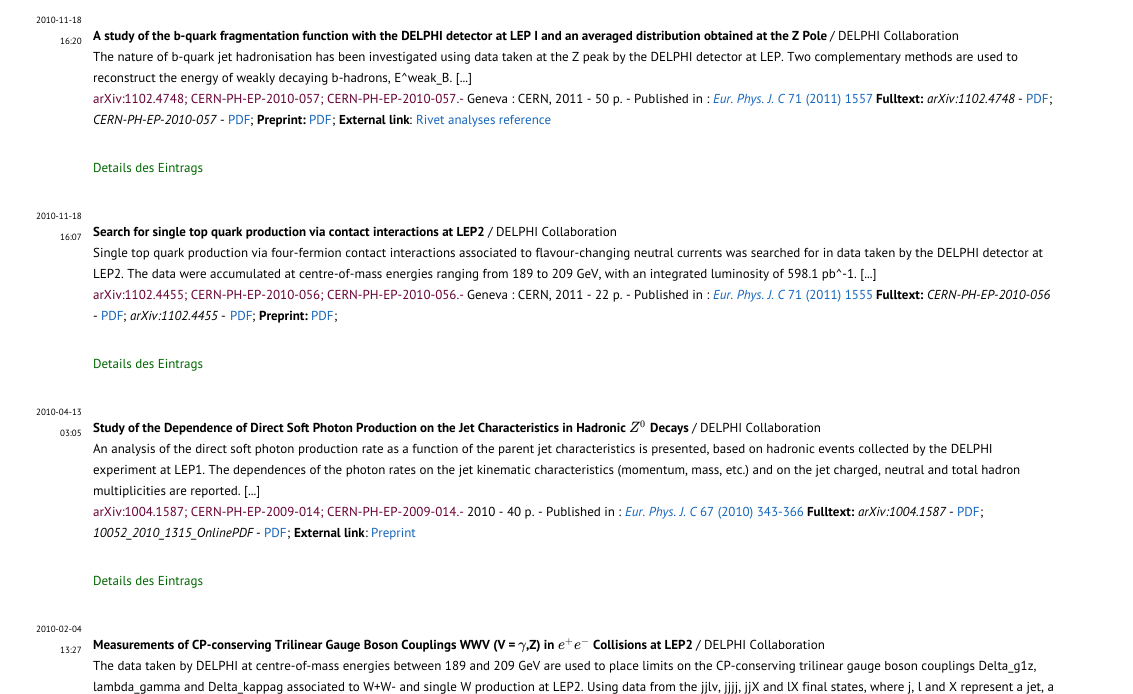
import math
import cairo

surface = cairo.ImageSurface(cairo.Format.RGB24, 1133, 694)
ctx = cairo.Context(surface)
options = cairo.FontOptions()
options.set_hint_metrics(cairo.HintMetrics.OFF)
options.set_hint_style(cairo.HintStyle.NONE)
ctx.set_font_options(options)
ctx.set_miter_limit(4)


def ink(r, g, b):
    ctx.set_source_rgb(r / 255, g / 255, b / 255)


def write(x, y, s, family, size, color, bold=False, italic=False):
    ctx.select_font_face(family, cairo.FontSlant.ITALIC if italic else cairo.FontSlant.NORMAL, cairo.FontWeight.BOLD if bold else cairo.FontWeight.NORMAL)
    ctx.set_font_size(size)
    ink(*color)
    ctx.move_to(x, y)
    ctx.show_text(s)


s1 = dict(family="PT Sans", size=9, color=(0, 0, 0))
s2 = dict(family="PT Sans", size=13, color=(0, 0, 0), bold=True)
s3 = dict(family="PT Sans", size=13, color=(0, 0, 0))
s4 = dict(family="PT Sans", size=13, color=(102, 0, 51))
s5 = dict(family="PT Sans", size=13, color=(21, 101, 186), italic=True)
s6 = dict(family="PT Sans", size=13, color=(21, 101, 186))
s7 = dict(family="PT Sans", size=13, color=(0, 0, 0), italic=True)
s8 = dict(family="PT Sans", size=13, color=(0, 102, 0))
s9 = dict(family="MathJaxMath", size=15, color=(0, 0, 0), italic=True)
s10 = dict(family="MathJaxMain", size=10, color=(0, 0, 0))

ink(255, 255, 255)
ctx.paint()
write(36, 23, "2010-11-18", **s1)
write(60, 44, "16:20", **s1)
write(93, 40, "A study of the b-quark fragmentation function with the DELPHI detector at LEP I and an averaged distribution obtained at the Z Pole", **s2)
write(830, 40, "/ DELPHI Collaboration", **s3)
write(93, 61, "The nature of b-quark jet hadronisation has been investigated using data taken at the Z peak by the DELPHI detector at LEP. Two complementary methods are used to", **s3)
write(93, 82, "reconstruct the energy of weakly decaying b-hadrons, E^weak_B. [...]", **s3)
write(93, 103, "arXiv:1102.4748; CERN-PH-EP-2010-057; CERN-PH-EP-2010-057.-", **s4)
write(467, 103, "Geneva : CERN, 2011 - 50 p. - Published in :", **s3)
write(713, 103, "Eur. Phys. J. C", **s5)
write(788, 103, "71 (2011) 1557", **s6)
write(876, 103, "Fulltext:", **s2)
write(927, 103, "arXiv:1102.4748", **s7)
write(1018, 103, "-", **s3)
write(1026, 103, "PDF", **s6)
write(1049, 103, ";", **s3)
write(93, 124, "CERN-PH-EP-2010-057", **s7)
write(220, 124, "-", **s3)
write(228, 124, "PDF", **s6)
write(250, 124, ";", **s3)
write(257, 124, "Preprint:", **s2)
write(309, 124, "PDF", **s6)
write(332, 124, ";", **s3)
write(339, 124, "External link", **s2)
write(409, 124, ":", **s3)
write(416, 124, "Rivet analyses reference", **s6)
write(93, 172, "Details des Eintrags", **s8)
write(36, 219, "2010-11-18", **s1)
write(60, 240, "16:07", **s1)
write(93, 236, "Search for single top quark production via contact interactions at LEP2", **s2)
write(488, 236, "/ DELPHI Collaboration", **s3)
write(93, 257, "Single top quark production via four-fermion contact interactions associated to flavour-changing neutral currents was searched for in data taken by the DELPHI detector at", **s3)
write(93, 278, "LEP2. The data were accumulated at centre-of-mass energies ranging from 189 to 209 GeV, with an integrated luminosity of 598.1 pb^-1. [...]", **s3)
write(93, 299, "arXiv:1102.4455; CERN-PH-EP-2010-056; CERN-PH-EP-2010-056.-", **s4)
write(467, 299, "Geneva : CERN, 2011 - 22 p. - Published in :", **s3)
write(713, 299, "Eur. Phys. J. C", **s5)
write(788, 299, "71 (2011) 1555", **s6)
write(876, 299, "Fulltext:", **s2)
write(927, 299, "CERN-PH-EP-2010-056", **s7)
write(93, 320, "-", **s3)
write(101, 320, "PDF", **s6)
write(123, 320, ";", **s3)
write(130, 320, "arXiv:1102.4455", **s7)
write(221, 320, "-", **s3)
write(230, 320, "PDF", **s6)
write(252, 320, ";", **s3)
write(259, 320, "Preprint:", **s2)
write(311, 320, "PDF", **s6)
write(334, 320, ";", **s3)
write(93, 368, "Details des Eintrags", **s8)
write(36, 415, "2010-04-13", **s1)
write(60, 436, "03:05", **s1)
write(93, 432, "Study of the Dependence of Direct Soft Photon Production on the Jet Characteristics in Hadronic", **s2)
write(629, 432, "Z", **s9)
write(640, 427, "0", **s10)
write(650, 432, "Decays", **s2)
write(692, 432, "/ DELPHI Collaboration", **s3)
write(93, 453, "An analysis of the direct soft photon production rate as a function of the parent jet characteristics is presented, based on hadronic events collected by the DELPHI", **s3)
write(93, 474, "experiment at LEP1. The dependences of the photon rates on the jet kinematic characteristics (momentum, mass, etc.) and on the jet charged, neutral and total hadron", **s3)
write(93, 495, "multiplicities are reported. [...]", **s3)
write(93, 516, "arXiv:1004.1587; CERN-PH-EP-2009-014; CERN-PH-EP-2009-014.-", **s4)
write(467, 516, "2010 - 40 p. - Published in :", **s3)
write(625, 516, "Eur. Phys. J. C", **s5)
write(700, 516, "67 (2010) 343-366", **s6)
write(807, 516, "Fulltext:", **s2)
write(858, 516, "arXiv:1004.1587", **s7)
write(949, 516, "-", **s3)
write(957, 516, "PDF", **s6)
write(980, 516, ";", **s3)
write(93, 537, "10052_2010_1315_OnlinePDF", **s7)
write(256, 537, "-", **s3)
write(264, 537, "PDF", **s6)
write(287, 537, ";", **s3)
write(294, 537, "External link", **s2)
write(365, 537, ":", **s3)
write(371, 537, "Preprint", **s6)
write(93, 585, "Details des Eintrags", **s8)
write(36, 632, "2010-02-04", **s1)
write(60, 653, "13:27", **s1)
write(93, 649, "Measurements of CP-conserving Trilinear Gauge Boson Couplings WWV (V =", **s2)
write(526, 649, ",Z) in", **s2)
write(518, 649, "γ", **s9)
write(565, 644, "+", **s10)
write(558, 649, "e", **s9)
write(581, 644, "−", **s10)
write(574, 649, "e", **s9)
write(593, 649, "Collisions at LEP2", **s2)
write(696, 649, "/ DELPHI Collaboration", **s3)
write(93, 670, "The data taken by DELPHI at centre-of-mass energies between 189 and 209 GeV are used to place limits on the CP-conserving trilinear gauge boson couplings Delta_g1z,", **s3)
write(93, 691, "lambda_gamma and Delta_kappag associated to W+W- and single W production at LEP2. Using data from the jjlv, jjjj, jjX and lX final states, where j, l and X represent a jet, a", **s3)
surface.write_to_png("screenshot.png")
